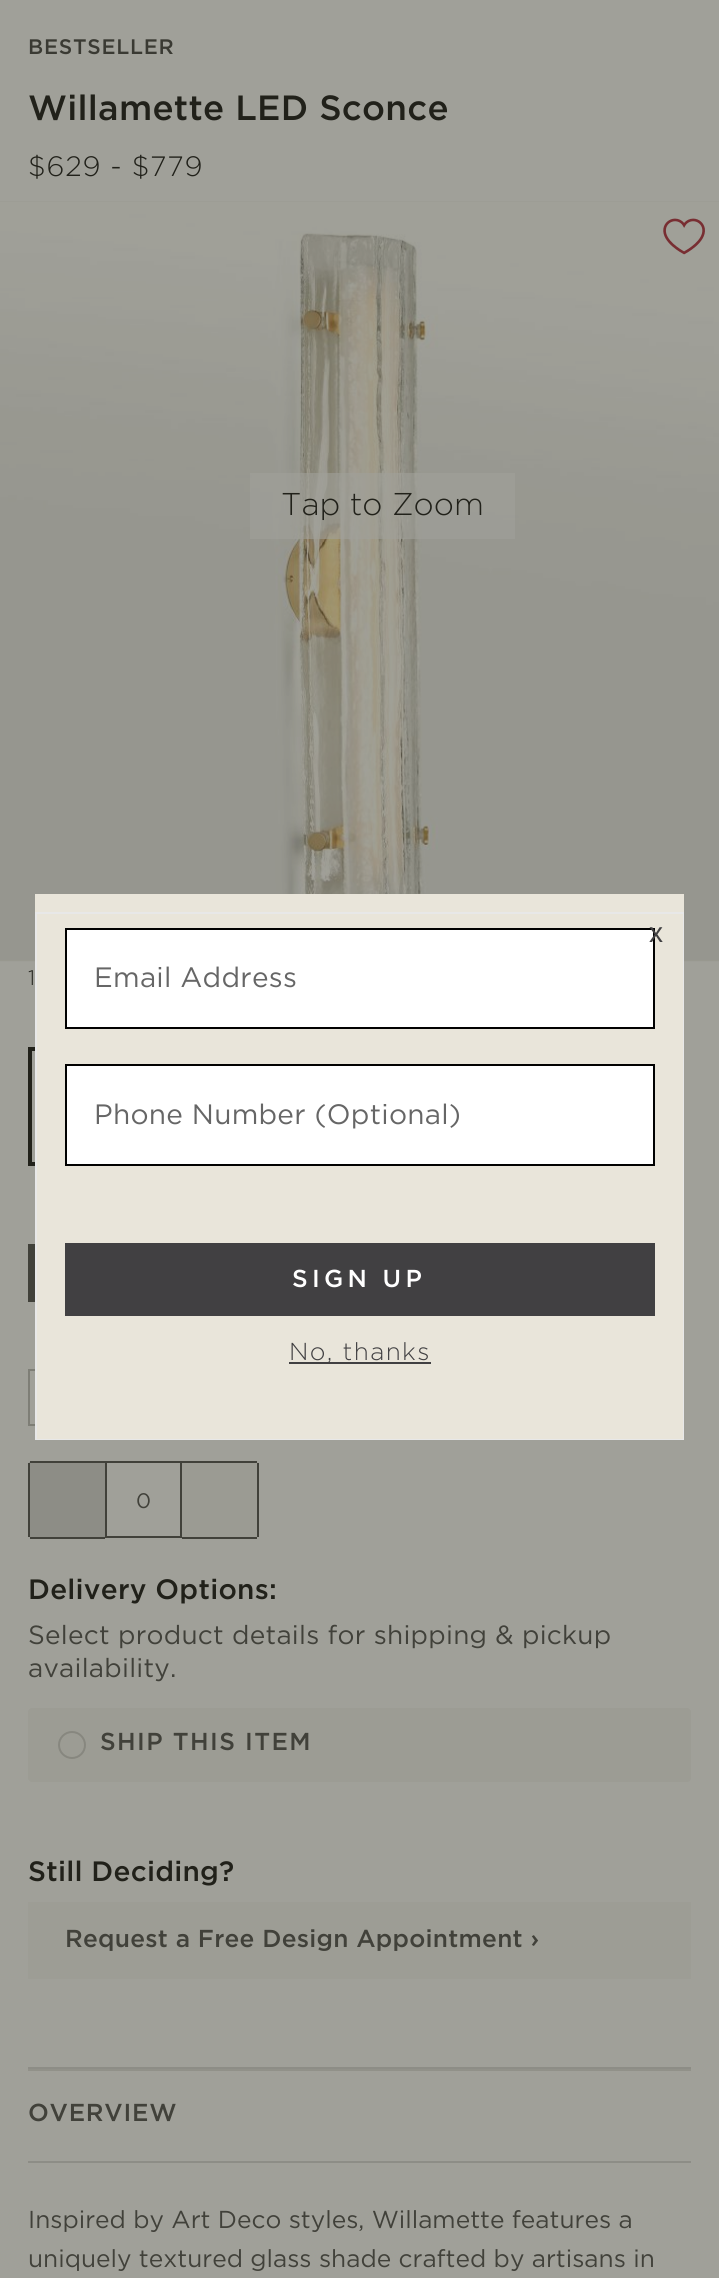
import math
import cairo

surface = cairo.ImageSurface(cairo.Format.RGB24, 719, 2278)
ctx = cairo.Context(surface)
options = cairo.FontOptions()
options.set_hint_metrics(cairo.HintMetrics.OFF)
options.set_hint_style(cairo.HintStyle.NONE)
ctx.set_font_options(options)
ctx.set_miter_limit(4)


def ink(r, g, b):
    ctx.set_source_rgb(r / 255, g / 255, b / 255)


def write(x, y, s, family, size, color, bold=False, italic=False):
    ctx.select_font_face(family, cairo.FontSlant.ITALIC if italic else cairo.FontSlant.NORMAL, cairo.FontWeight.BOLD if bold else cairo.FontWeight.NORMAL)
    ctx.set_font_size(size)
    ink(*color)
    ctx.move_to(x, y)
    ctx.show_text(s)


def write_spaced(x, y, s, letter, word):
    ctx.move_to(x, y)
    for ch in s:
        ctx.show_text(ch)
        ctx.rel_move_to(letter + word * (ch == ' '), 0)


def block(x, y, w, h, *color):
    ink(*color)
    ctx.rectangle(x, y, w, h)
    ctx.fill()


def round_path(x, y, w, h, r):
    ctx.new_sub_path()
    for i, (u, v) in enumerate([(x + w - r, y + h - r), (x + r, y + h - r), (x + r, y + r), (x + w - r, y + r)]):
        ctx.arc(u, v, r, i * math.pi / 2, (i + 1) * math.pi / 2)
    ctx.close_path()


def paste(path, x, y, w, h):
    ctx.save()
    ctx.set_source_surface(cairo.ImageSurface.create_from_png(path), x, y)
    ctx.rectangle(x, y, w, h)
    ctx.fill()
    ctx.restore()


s1 = dict(family="Gotham Light", size=31.5, color=(33, 33, 26))
s2 = dict(family="Gotham Light", size=21, color=(33, 33, 26))
s3 = dict(family="Gotham", size=24.5, color=(65, 65, 58))
s4 = dict(family="Liberation Sans", size=28, color=(65, 64, 66))

ink(160, 160, 153)
ctx.paint()
ctx.select_font_face("Gotham Medium")
ctx.set_font_size(21)
ink(58, 58, 51)
write_spaced(28, 54, "BESTSELLER", 0.75, 0)
ctx.set_font_size(35)
ink(33, 33, 26)
write_spaced(28, 120, "Willamette LED Sconce", 0.25, 0)
ctx.select_font_face("Gotham Light")
ctx.set_font_size(28)
write_spaced(28, 176, "$629 - $779", 0.75, 0)
block(0, 201, 719, 760, 157, 157, 149)
paste("pic2.png", 0, 202, 719, 760)
paste("pic1.png", 663, 218, 42, 37)
ctx.set_source_rgba(0.627, 0.627, 0.6, 0.6)
ctx.rectangle(250, 473, 265, 66)
ctx.fill()
write(281, 515, "Tap to Zoom", **s1)
write(28, 985, "1", **s2)
ctx.rectangle(30, 1049, 115, 115)
ctx.set_line_width(4)
ctx.stroke()
block(28, 1244, 7, 58, 65, 65, 58)
ctx.rectangle(29, 1370, 145, 55)
ink(126, 126, 118)
ctx.set_line_width(2)
ctx.stroke()
ink(141, 141, 134)
ctx.new_path()
ctx.move_to(32, 1461)
ctx.line_to(105, 1461)
ctx.line_to(105, 1538)
ctx.line_to(32, 1538)
ctx.curve_to(30, 1538, 28, 1536, 28, 1534)
ctx.line_to(28, 1465)
ctx.curve_to(28, 1463, 30, 1461, 32, 1461)
ctx.close_path()
ctx.fill()
block(30, 1461, 75, 2, 65, 65, 58)
block(30, 1537, 75, 2, 65, 65, 58)
block(28, 1463, 2, 74, 65, 65, 58)
ctx.rectangle(106, 1462, 75, 75)
ctx.stroke()
ctx.select_font_face("Gotham")
write_spaced(136, 1508, "0", 0.25, 0)
ink(155, 155, 147)
ctx.new_path()
ctx.move_to(182, 1461)
ctx.line_to(255, 1461)
ctx.curve_to(257, 1461, 259, 1463, 259, 1465)
ctx.line_to(259, 1534)
ctx.curve_to(259, 1536, 257, 1538, 255, 1538)
ctx.line_to(182, 1538)
ctx.close_path()
ctx.fill()
block(182, 1461, 75, 2, 65, 65, 58)
block(257, 1463, 2, 74, 65, 65, 58)
block(182, 1537, 75, 2, 65, 65, 58)
ctx.select_font_face("Gotham Medium")
ctx.set_font_size(28)
ink(33, 33, 26)
write_spaced(28, 1599, "Delivery Options:", 0.25, 0)
ctx.select_font_face("Gotham")
ctx.set_font_size(26.25)
ink(65, 65, 58)
write_spaced(28, 1644, "Select product details for shipping & pickup", 0.25, 0)
write_spaced(28, 1677, "availability.", 0.25, 0)
ink(156, 156, 148)
round_path(28, 1708, 663, 74, 4)
ctx.fill()
ctx.arc(72, 1745, 13, 0, 2 * math.pi)
ink(135, 135, 127)
ctx.stroke()
ctx.select_font_face("Gotham Medium")
ctx.set_font_size(24.5)
ink(65, 65, 58)
write_spaced(100, 1750, "SHIP THIS ITEM", 1.4, 0)
ctx.set_font_size(28)
ink(33, 33, 26)
write_spaced(28, 1881, "Still Deciding?", 0.25, 0)
block(28, 1902, 663, 77, 157, 157, 149)
ctx.set_font_size(24.5)
ink(65, 65, 58)
write_spaced(65, 1947, "Request a Free Design Appointment ›", 0.25, 0)
block(28, 2067, 663, 2, 141, 141, 134)
block(28, 2069, 663, 2, 145, 145, 137)
ink(65, 65, 58)
write_spaced(28, 2121, "OVERVIEW", 0.75, 0)
block(28, 2161, 663, 2, 141, 141, 134)
write(28, 2228, "Inspired by Art Deco styles, Willamette features a", **s3)
write(28, 2267, "uniquely textured glass shade crafted by artisans in", **s3)
block(35, 894, 649, 18, 233, 229, 218)
ctx.rectangle(36, 913, 647, 526)
ink(232, 232, 232)
ctx.stroke()
block(37, 914, 646, 525, 233, 229, 218)
ink(255, 255, 255)
ctx.rectangle(66, 929, 588, 99)
ctx.fill_preserve()
ink(1, 1, 1)
ctx.stroke()
write(649, 942, "x", **s4)
ctx.select_font_face("Gotham")
ink(102, 102, 102)
write_spaced(94, 987, "Email Address", 0.25, 0)
ink(255, 255, 255)
ctx.rectangle(66, 1065, 588, 100)
ctx.fill_preserve()
ink(1, 1, 1)
ctx.stroke()
ink(102, 102, 102)
write_spaced(94, 1124, "Phone Number (Optional)", 0.25, 0)
block(65, 1243, 590, 73, 65, 64, 66)
ctx.select_font_face("Gotham Medium")
ctx.set_font_size(24.5)
ink(255, 255, 255)
write_spaced(292, 1287, "SIGN UP", 4.25, 0)
block(289, 1362, 142, 2, 65, 64, 66)
ctx.select_font_face("Gotham Light")
write_spaced(289, 1360, "No, thanks", 1.4, 0)
surface.write_to_png("screenshot.png")
